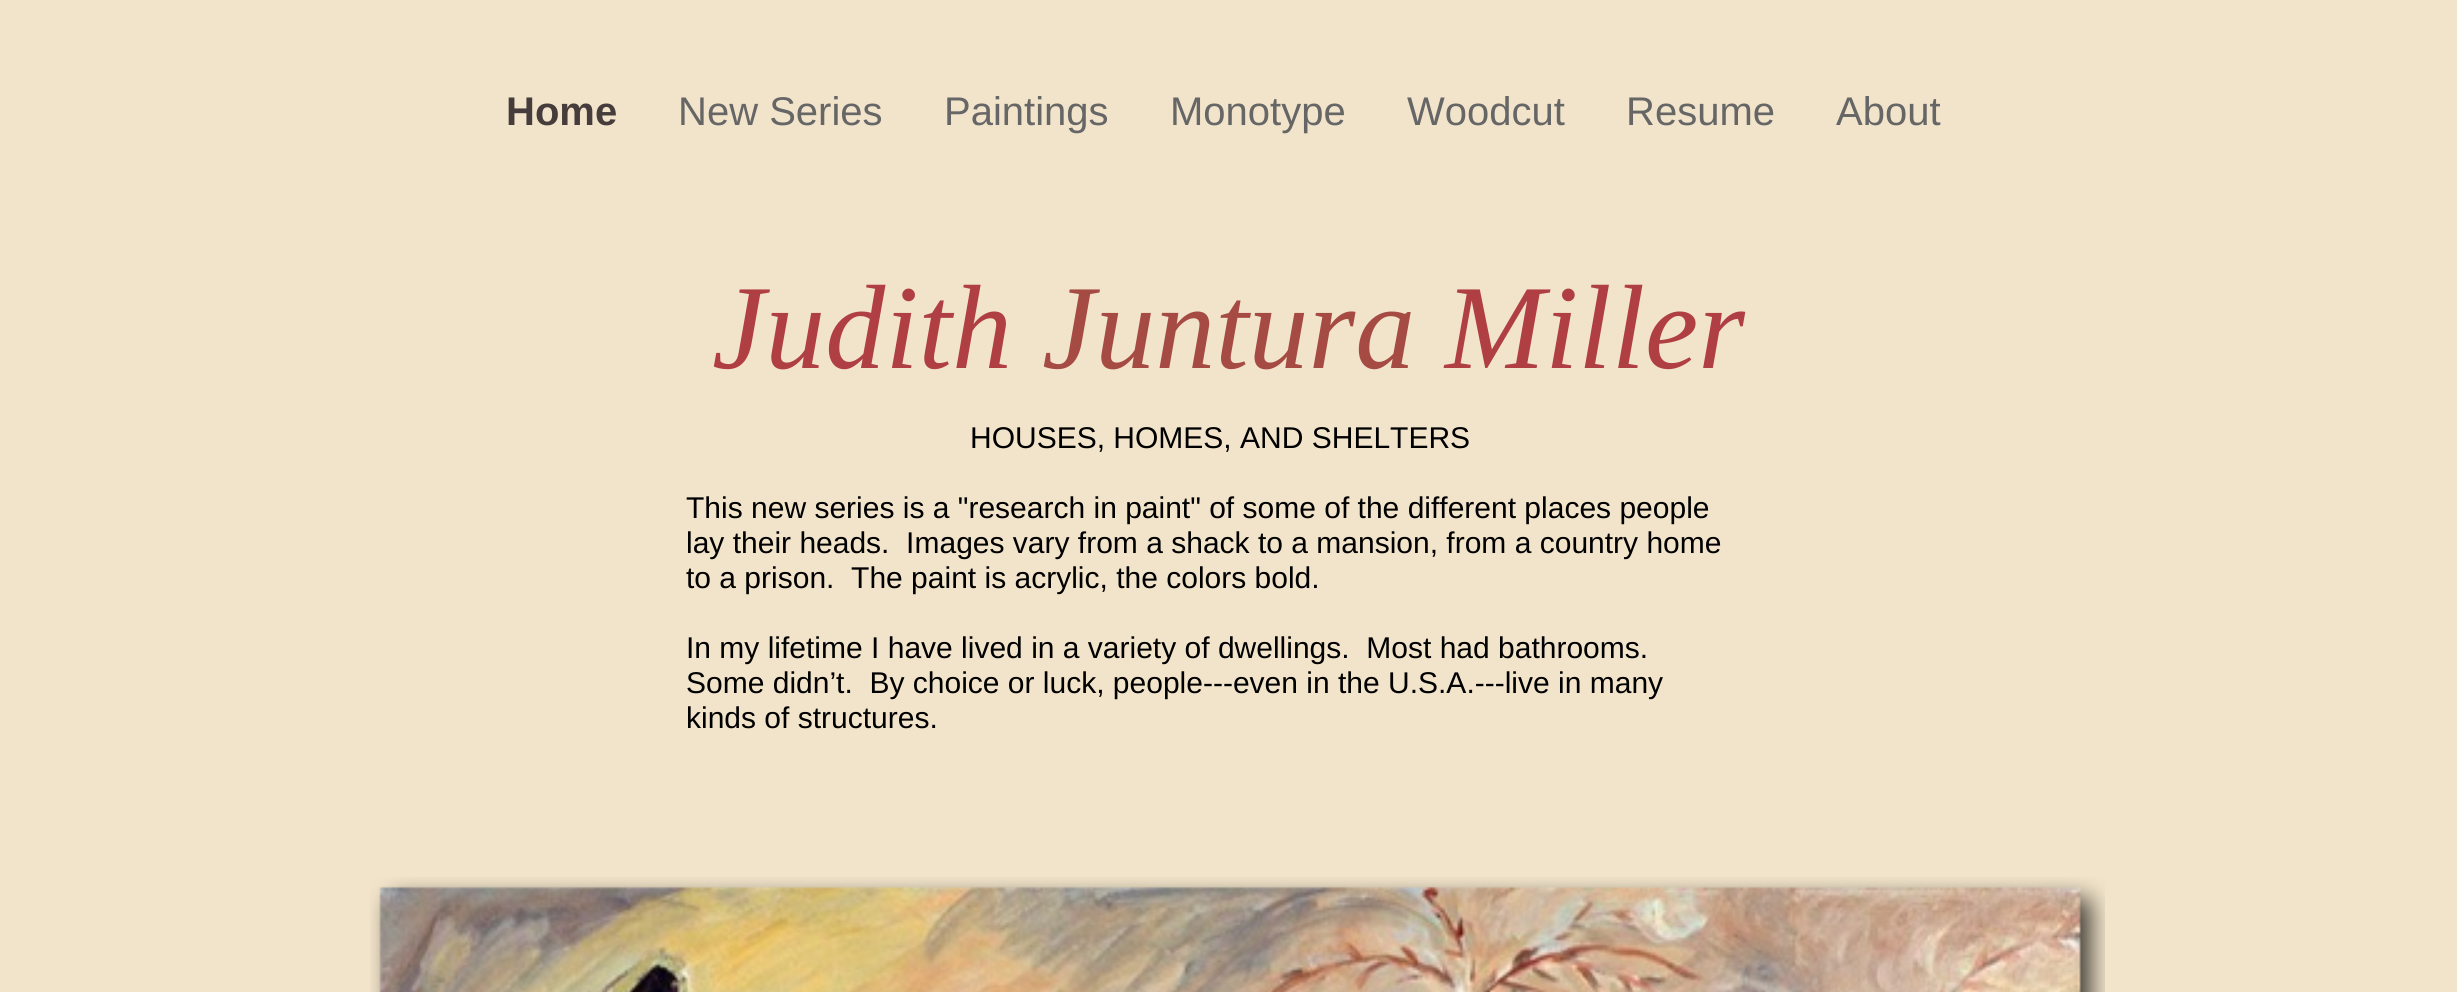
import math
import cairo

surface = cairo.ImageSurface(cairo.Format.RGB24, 2457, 992)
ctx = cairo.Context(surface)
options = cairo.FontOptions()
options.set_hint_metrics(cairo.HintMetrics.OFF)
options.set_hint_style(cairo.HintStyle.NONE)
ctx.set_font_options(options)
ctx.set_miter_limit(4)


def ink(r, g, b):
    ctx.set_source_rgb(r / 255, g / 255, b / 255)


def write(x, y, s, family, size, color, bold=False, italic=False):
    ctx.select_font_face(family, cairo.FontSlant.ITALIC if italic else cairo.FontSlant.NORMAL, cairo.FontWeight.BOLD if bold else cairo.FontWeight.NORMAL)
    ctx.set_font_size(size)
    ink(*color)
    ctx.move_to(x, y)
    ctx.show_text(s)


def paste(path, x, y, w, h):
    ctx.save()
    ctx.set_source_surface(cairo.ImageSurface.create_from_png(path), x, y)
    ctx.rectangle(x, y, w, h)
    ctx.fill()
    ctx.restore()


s1 = dict(family="Liberation Sans", size=40, color=(70, 60, 60), bold=True)
s2 = dict(family="Liberation Sans", size=40, color=(102, 102, 102))
s3 = dict(family="Liberation Serif", size=120, color=(176, 63, 67), italic=True)
s4 = dict(family="Liberation Serif", size=120, color=(165, 75, 68), italic=True)
s5 = dict(family="Liberation Sans", size=30, color=(0, 0, 0))

ink(242, 228, 202)
ctx.paint()
write(506, 125, "Home", **s1)
write(678, 125, "New Series", **s2)
write(944, 125, "Paintings", **s2)
write(1170, 125, "Monotype", **s2)
write(1407, 125, "Woodcut", **s2)
write(1626, 125, "Resume", **s2)
write(1836, 125, "About", **s2)
write(712, 368, "Judith", **s3)
write(1042, 368, "Juntura", **s4)
write(1445, 368, "Miller", **s3)
write(970, 448, "HOUSES, HOMES, AND SHELTERS", **s5)
write(686, 518, "This new series is a \"research in paint\" of some of the different places people", **s5)
write(686, 553, "lay their heads.  Images vary from a shack to a mansion, from a country home", **s5)
write(686, 588, "to a prison.  The paint is acrylic, the colors bold.", **s5)
write(686, 658, "In my lifetime I have lived in a variety of dwellings.  Most had bathrooms.", **s5)
write(686, 693, "Some didn’t.  By choice or luck, people---even in the U.S.A.---live in many", **s5)
write(686, 728, "kinds of structures.", **s5)
paste("pic1.png", 370, 877, 1735, 115)
surface.write_to_png("screenshot.png")
